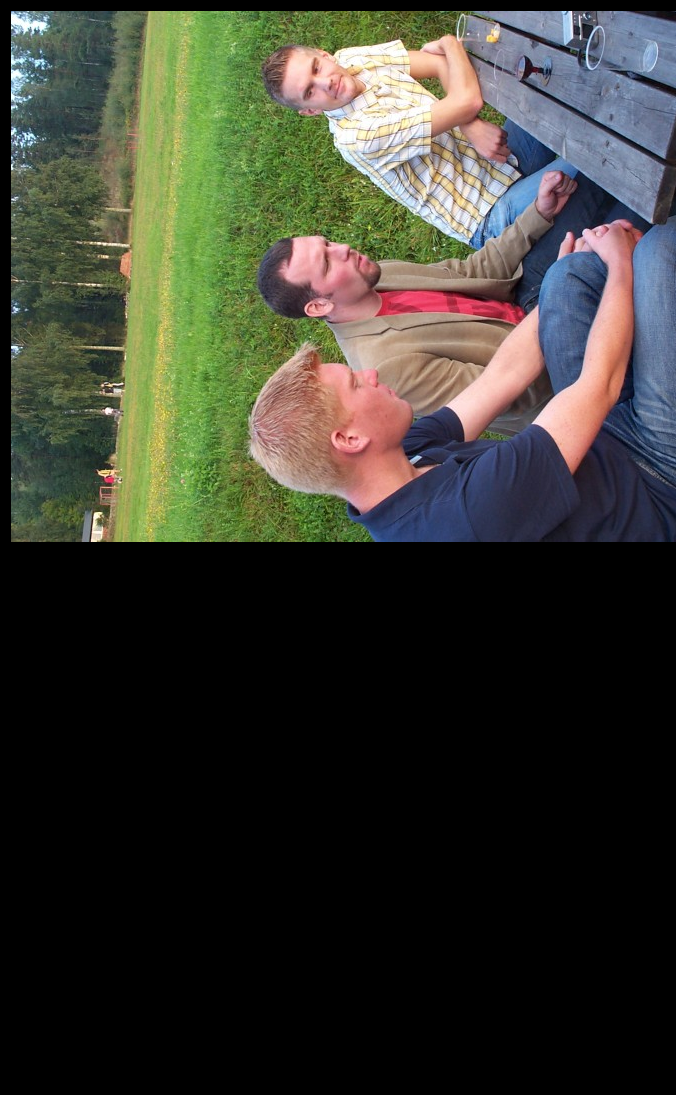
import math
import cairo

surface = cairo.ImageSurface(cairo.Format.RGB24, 676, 1095)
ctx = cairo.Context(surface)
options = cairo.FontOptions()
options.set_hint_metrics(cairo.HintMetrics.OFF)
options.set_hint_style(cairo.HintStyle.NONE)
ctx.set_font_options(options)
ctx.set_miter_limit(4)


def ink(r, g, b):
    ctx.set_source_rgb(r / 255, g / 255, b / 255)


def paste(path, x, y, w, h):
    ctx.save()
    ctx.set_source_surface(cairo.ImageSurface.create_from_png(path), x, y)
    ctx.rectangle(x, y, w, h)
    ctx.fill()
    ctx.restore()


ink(0, 0, 0)
ctx.paint()
paste("pic1.png", 11, 11, 665, 531)
surface.write_to_png("screenshot.png")
